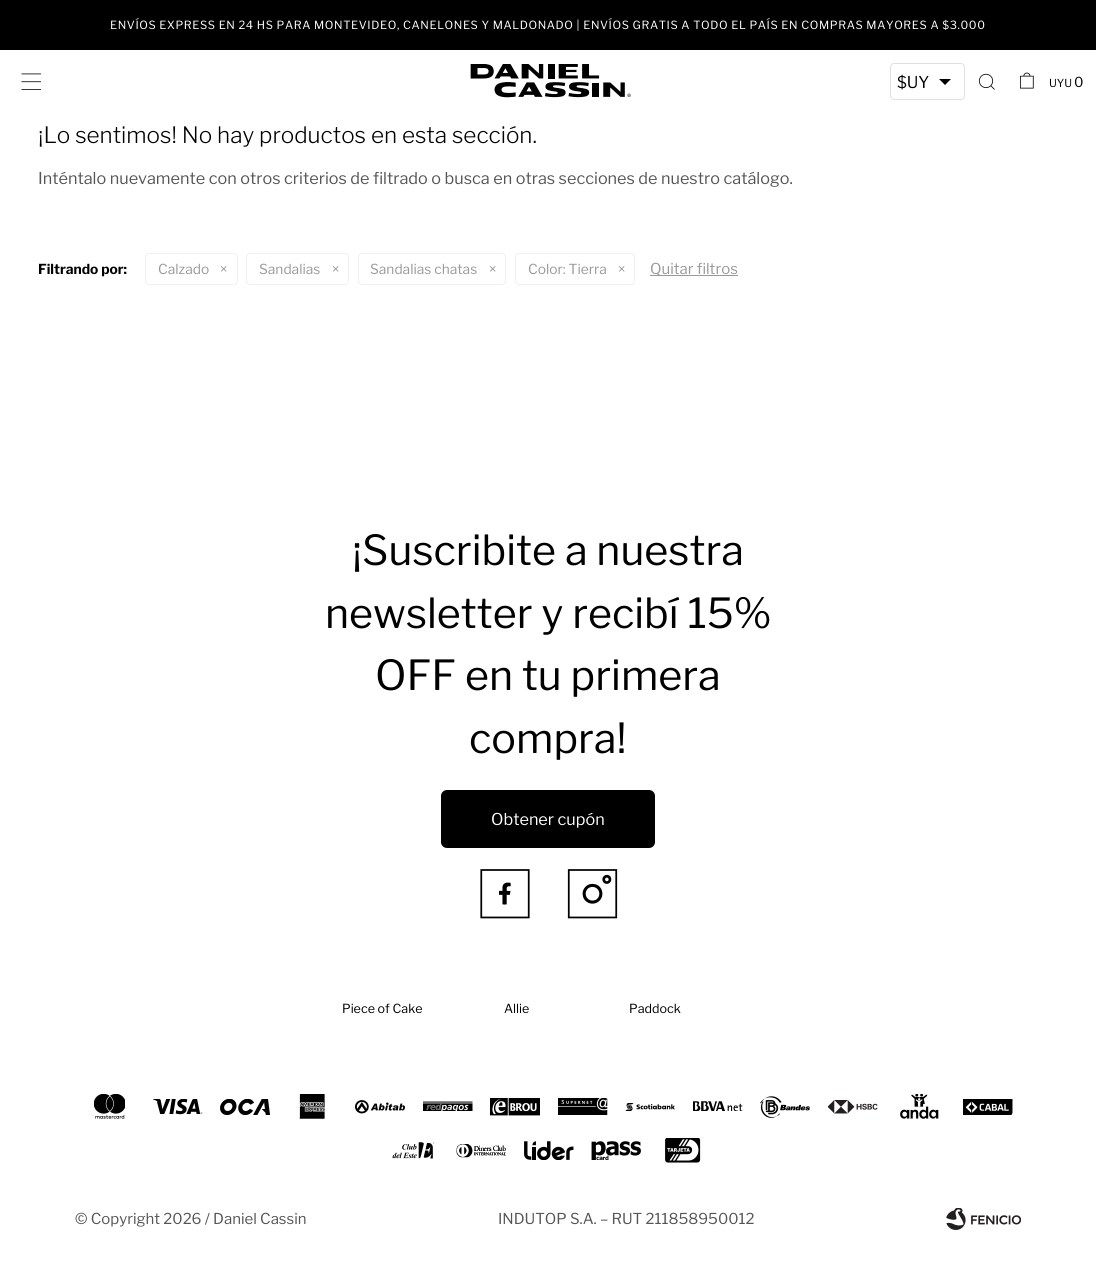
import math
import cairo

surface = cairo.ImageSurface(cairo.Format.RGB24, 1096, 1274)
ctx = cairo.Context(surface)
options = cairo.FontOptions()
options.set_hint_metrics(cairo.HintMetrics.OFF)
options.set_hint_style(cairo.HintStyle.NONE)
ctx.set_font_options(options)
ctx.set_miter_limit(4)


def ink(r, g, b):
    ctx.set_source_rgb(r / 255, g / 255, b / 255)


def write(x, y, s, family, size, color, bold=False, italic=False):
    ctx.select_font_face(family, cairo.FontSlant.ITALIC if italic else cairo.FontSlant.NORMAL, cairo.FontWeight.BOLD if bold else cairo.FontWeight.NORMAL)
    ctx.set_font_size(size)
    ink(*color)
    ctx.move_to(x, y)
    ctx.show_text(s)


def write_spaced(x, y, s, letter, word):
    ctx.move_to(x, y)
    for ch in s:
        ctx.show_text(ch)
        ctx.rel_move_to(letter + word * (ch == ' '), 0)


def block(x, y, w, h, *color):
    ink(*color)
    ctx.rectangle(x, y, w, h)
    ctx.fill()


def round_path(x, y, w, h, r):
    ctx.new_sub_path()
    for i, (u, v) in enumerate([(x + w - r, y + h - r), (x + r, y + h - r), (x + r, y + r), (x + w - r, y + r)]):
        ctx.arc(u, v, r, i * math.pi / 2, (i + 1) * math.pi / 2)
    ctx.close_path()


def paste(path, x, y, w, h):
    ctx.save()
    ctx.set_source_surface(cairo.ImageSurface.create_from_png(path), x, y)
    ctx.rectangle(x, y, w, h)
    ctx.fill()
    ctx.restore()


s1 = dict(family="Libre Franklin", size=16.25, color=(0, 0, 0))
s2 = dict(family="Libre Franklin", size=11, color=(0, 0, 0))
s3 = dict(family="Libre Franklin", size=13.75, color=(0, 0, 0))
s4 = dict(family="Libre Franklin Light", size=22.5, color=(0, 0, 0))
s5 = dict(family="Libre Franklin", size=16.25, color=(85, 85, 85))
s6 = dict(family="Libre Franklin", size=13.75, color=(0, 0, 0), bold=True)
s7 = dict(family="Libre Franklin", size=13.75, color=(153, 153, 153))
s8 = dict(family="Libre Franklin", size=15, color=(153, 153, 153))
s9 = dict(family="Libre Franklin", size=41.25, color=(0, 0, 0))
s10 = dict(family="Libre Franklin", size=16.25, color=(255, 255, 255))
s11 = dict(family="Libre Franklin", size=12.5, color=(0, 0, 0))
s12 = dict(family="Libre Franklin", size=15, color=(85, 85, 85))

ink(255, 255, 255)
ctx.paint()
block(0, 0, 1096, 50, 0, 0, 0)
ctx.select_font_face("Libre Franklin")
ctx.set_font_size(11.25)
ink(255, 255, 255)
write_spaced(110, 29, "ENVÍOS EXPRESS EN 24 HS PARA MONTEVIDEO, CANELONES Y MALDONADO | ENVÍOS GRATIS A TODO EL PAÍS EN COMPRAS MAYORES A $3.000", 0.62, 0)
paste("pic1.png", 21, 73, 21, 17)
paste("pic2.png", 470, 64, 161, 34)
ink(0, 0, 0)
ctx.new_path()
ctx.move_to(939, 79)
ctx.line_to(945, 85)
ctx.line_to(951, 79)
ctx.close_path()
ctx.fill()
round_path(890.5, 63.5, 74, 36, 3.5)
ink(224, 224, 224)
ctx.set_line_width(1)
ctx.stroke()
write(897, 88, "$UY", **s1)
paste("pic3.png", 978, 73, 17, 17)
paste("pic4.png", 1020, 72, 14, 17)
write(1049, 87, "UYU", **s2)
write(1074, 87, "0", **s3)
write(38, 143, "¡Lo sentimos! No hay productos en esta sección.", **s4)
write(38, 184, "Inténtalo nuevamente con otros criterios de filtrado o busca en otras secciones de nuestro catálogo.", **s5)
write(38, 274, "Filtrando por:", **s6)
round_path(145.5, 253.5, 92, 31, 3.5)
ink(240, 240, 240)
ctx.stroke()
write(158, 274, "Calzado", **s7)
write(220, 274, "×", **s7)
round_path(246.5, 253.5, 102, 31, 3.5)
ink(240, 240, 240)
ctx.stroke()
write(259, 274, "Sandalias", **s7)
write(332, 274, "×", **s7)
round_path(358.5, 253.5, 147, 31, 3.5)
ink(240, 240, 240)
ctx.stroke()
write(370, 274, "Sandalias chatas", **s7)
write(489, 274, "×", **s7)
round_path(515.5, 253.5, 119, 31, 3.5)
ink(240, 240, 240)
ctx.stroke()
write(528, 274, "Color: Tierra", **s7)
write(618, 274, "×", **s7)
block(650, 275, 88, 1, 153, 153, 153)
write(650, 274, "Quitar filtros", **s8)
write(352, 565, "¡Suscribite a nuestra", **s9)
write(325, 628, "newsletter y recibí 15%", **s9)
write(375, 690, "OFF en tu primera", **s9)
write(469, 753, "compra!", **s9)
round_path(441, 790, 214, 58, 6)
ctx.fill()
write(491, 825, "Obtener cupón", **s10)
paste("pic5.png", 480, 869, 50, 50)
paste("pic6.png", 567, 869, 51, 50)
write(342, 1013, "Piece of Cake", **s11)
write(504, 1013, "Allie", **s11)
write(629, 1013, "Paddock", **s11)
paste("pic7.png", 94, 1094, 31, 25)
paste("pic8.png", 153, 1099, 50, 16)
paste("pic9.png", 220, 1099, 50, 16)
paste("pic10.png", 299, 1094, 26, 25)
paste("pic11.png", 355, 1100, 50, 14)
paste("pic12.png", 423, 1101, 50, 10)
paste("pic13.png", 490, 1098, 50, 18)
paste("pic14.png", 558, 1098, 50, 17)
paste("pic15.png", 625, 1103, 50, 8)
paste("pic16.png", 693, 1101, 50, 10)
paste("pic17.png", 760, 1096, 50, 22)
paste("pic18.png", 828, 1100, 50, 14)
paste("pic19.png", 900, 1094, 39, 25)
paste("pic20.png", 963, 1099, 50, 16)
paste("pic21.png", 392, 1142, 43, 17)
paste("pic22.png", 456, 1144, 50, 14)
paste("pic23.png", 524, 1141, 50, 19)
paste("pic24.png", 591, 1141, 50, 19)
paste("pic25.png", 665, 1138, 36, 25)
write(75, 1224, "© Copyright 2026 / Daniel Cassin", **s12)
write(498, 1224, "INDUTOP S.A. – RUT 211858950012", **s12)
paste("pic26.png", 946, 1208, 75, 22)
surface.write_to_png("screenshot.png")
